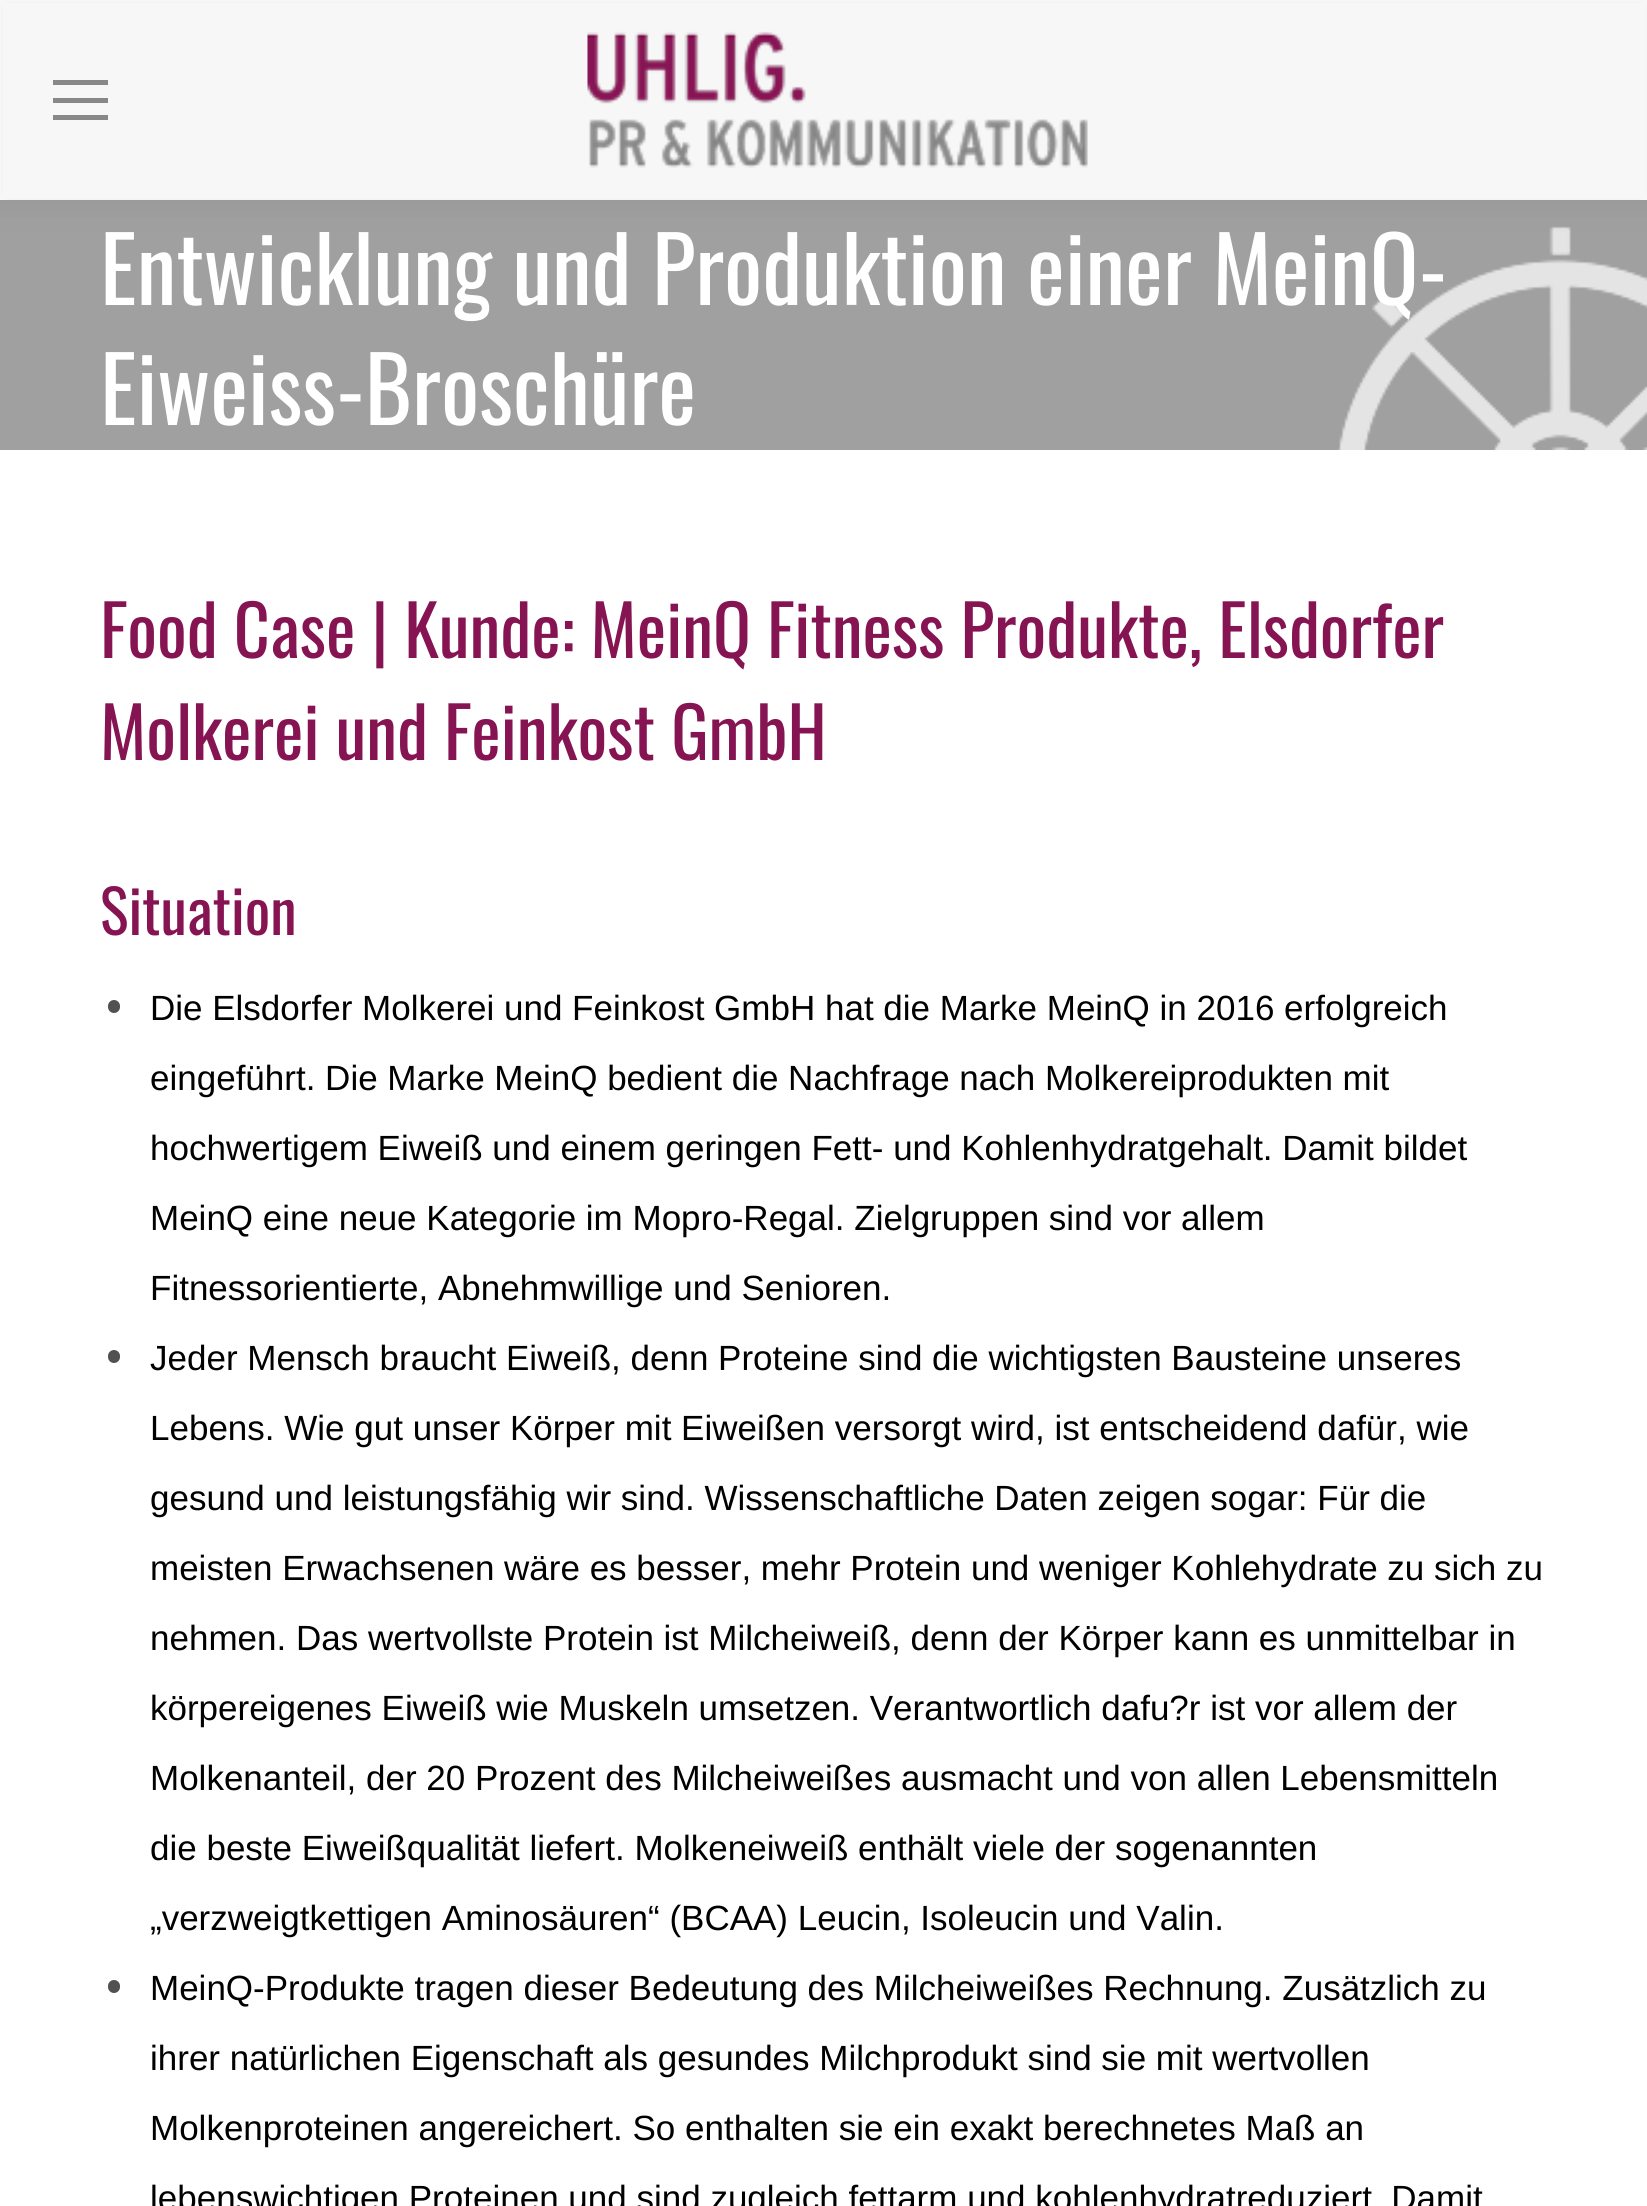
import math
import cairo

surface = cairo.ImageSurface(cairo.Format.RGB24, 1647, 2206)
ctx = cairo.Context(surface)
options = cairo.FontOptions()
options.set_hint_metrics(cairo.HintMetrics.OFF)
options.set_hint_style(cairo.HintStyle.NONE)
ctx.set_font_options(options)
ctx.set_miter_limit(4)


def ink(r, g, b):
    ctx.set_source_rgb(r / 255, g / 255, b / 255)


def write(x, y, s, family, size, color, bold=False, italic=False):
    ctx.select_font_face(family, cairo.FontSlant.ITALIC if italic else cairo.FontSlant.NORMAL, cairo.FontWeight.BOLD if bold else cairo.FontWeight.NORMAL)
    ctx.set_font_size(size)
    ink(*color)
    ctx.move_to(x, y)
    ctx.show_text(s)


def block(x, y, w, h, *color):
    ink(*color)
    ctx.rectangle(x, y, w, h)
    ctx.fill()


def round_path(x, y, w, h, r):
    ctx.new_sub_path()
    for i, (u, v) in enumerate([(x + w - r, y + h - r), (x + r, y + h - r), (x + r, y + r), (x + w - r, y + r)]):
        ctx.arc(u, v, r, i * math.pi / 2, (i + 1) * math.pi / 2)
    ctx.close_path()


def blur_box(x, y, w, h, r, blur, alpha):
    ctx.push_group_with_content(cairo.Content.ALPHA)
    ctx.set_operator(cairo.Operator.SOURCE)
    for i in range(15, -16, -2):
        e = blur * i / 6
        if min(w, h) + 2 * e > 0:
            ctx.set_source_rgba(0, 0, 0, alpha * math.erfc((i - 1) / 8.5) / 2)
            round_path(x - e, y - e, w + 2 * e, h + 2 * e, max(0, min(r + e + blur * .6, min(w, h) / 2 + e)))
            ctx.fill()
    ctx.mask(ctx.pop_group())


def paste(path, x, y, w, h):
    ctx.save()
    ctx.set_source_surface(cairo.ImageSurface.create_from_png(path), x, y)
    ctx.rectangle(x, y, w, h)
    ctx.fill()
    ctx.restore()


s1 = dict(family="Oswald", size=90, color=(255, 255, 255))
s2 = dict(family="Oswald", size=70, color=(134, 20, 83))
s3 = dict(family="Oswald", size=60, color=(134, 20, 83))
s4 = dict(family="Liberation Sans", size=35, color=(0, 0, 0))

ink(255, 255, 255)
ctx.paint()
block(0, 200, 1647, 250, 160, 160, 160)
paste("pic2.png", 1337, 226, 310, 224)
ink(0, 0, 0)
blur_box(-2, -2, 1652, 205, 0, 19, 0.07)
block(3, 3, 1642, 195, 247, 247, 247)
block(53, 80, 55, 5, 136, 136, 136)
block(53, 98, 55, 5, 136, 136, 136)
block(53, 115, 55, 5, 136, 136, 136)
paste("pic1.png", 587, 31, 501, 137)
write(100, 305, "Entwicklung und Produktion einer MeinQ-", **s1)
write(100, 425, "Eiweiss-Broschüre", **s1)
write(100, 658, "Food Case | Kunde: MeinQ Fitness Produkte, Elsdorfer", **s2)
write(100, 760, "Molkerei und Feinkost GmbH", **s2)
write(100, 935, "Situation", **s3)
ink(81, 81, 81)
round_path(108, 1000, 12, 13, 6)
ctx.fill()
write(150, 1020, "Die Elsdorfer Molkerei und Feinkost GmbH hat die Marke MeinQ in 2016 erfolgreich", **s4)
write(150, 1090, "eingeführt. Die Marke MeinQ bedient die Nachfrage nach Molkereiprodukten mit", **s4)
write(150, 1160, "hochwertigem Eiweiß und einem geringen Fett- und Kohlenhydratgehalt. Damit bildet", **s4)
write(150, 1230, "MeinQ eine neue Kategorie im Mopro-Regal. Zielgruppen sind vor allem", **s4)
write(150, 1300, "Fitnessorientierte, Abnehmwillige und Senioren.", **s4)
ink(81, 81, 81)
round_path(108, 1350, 12, 13, 6)
ctx.fill()
write(150, 1370, "Jeder Mensch braucht Eiweiß, denn Proteine sind die wichtigsten Bausteine unseres", **s4)
write(150, 1440, "Lebens. Wie gut unser Körper mit Eiweißen versorgt wird, ist entscheidend dafür, wie", **s4)
write(150, 1510, "gesund und leistungsfähig wir sind. Wissenschaftliche Daten zeigen sogar: Für die", **s4)
write(150, 1580, "meisten Erwachsenen wäre es besser, mehr Protein und weniger Kohlehydrate zu sich zu", **s4)
write(150, 1650, "nehmen. Das wertvollste Protein ist Milcheiweiß, denn der Körper kann es unmittelbar in", **s4)
write(150, 1720, "körpereigenes Eiweiß wie Muskeln umsetzen. Verantwortlich dafu?r ist vor allem der", **s4)
write(150, 1790, "Molkenanteil, der 20 Prozent des Milcheiweißes ausmacht und von allen Lebensmitteln", **s4)
write(150, 1860, "die beste Eiweißqualität liefert. Molkeneiweiß enthält viele der sogenannten", **s4)
write(150, 1930, "„verzweigtkettigen Aminosäuren“ (BCAA) Leucin, Isoleucin und Valin.", **s4)
ink(81, 81, 81)
round_path(108, 1980, 12, 13, 6)
ctx.fill()
write(150, 2000, "MeinQ-Produkte tragen dieser Bedeutung des Milcheiweißes Rechnung. Zusätzlich zu", **s4)
write(150, 2070, "ihrer natürlichen Eigenschaft als gesundes Milchprodukt sind sie mit wertvollen", **s4)
write(150, 2140, "Molkenproteinen angereichert. So enthalten sie ein exakt berechnetes Maß an", **s4)
write(150, 2210, "lebenswichtigen Proteinen und sind zugleich fettarm und kohlenhydratreduziert. Damit", **s4)
surface.write_to_png("screenshot.png")
